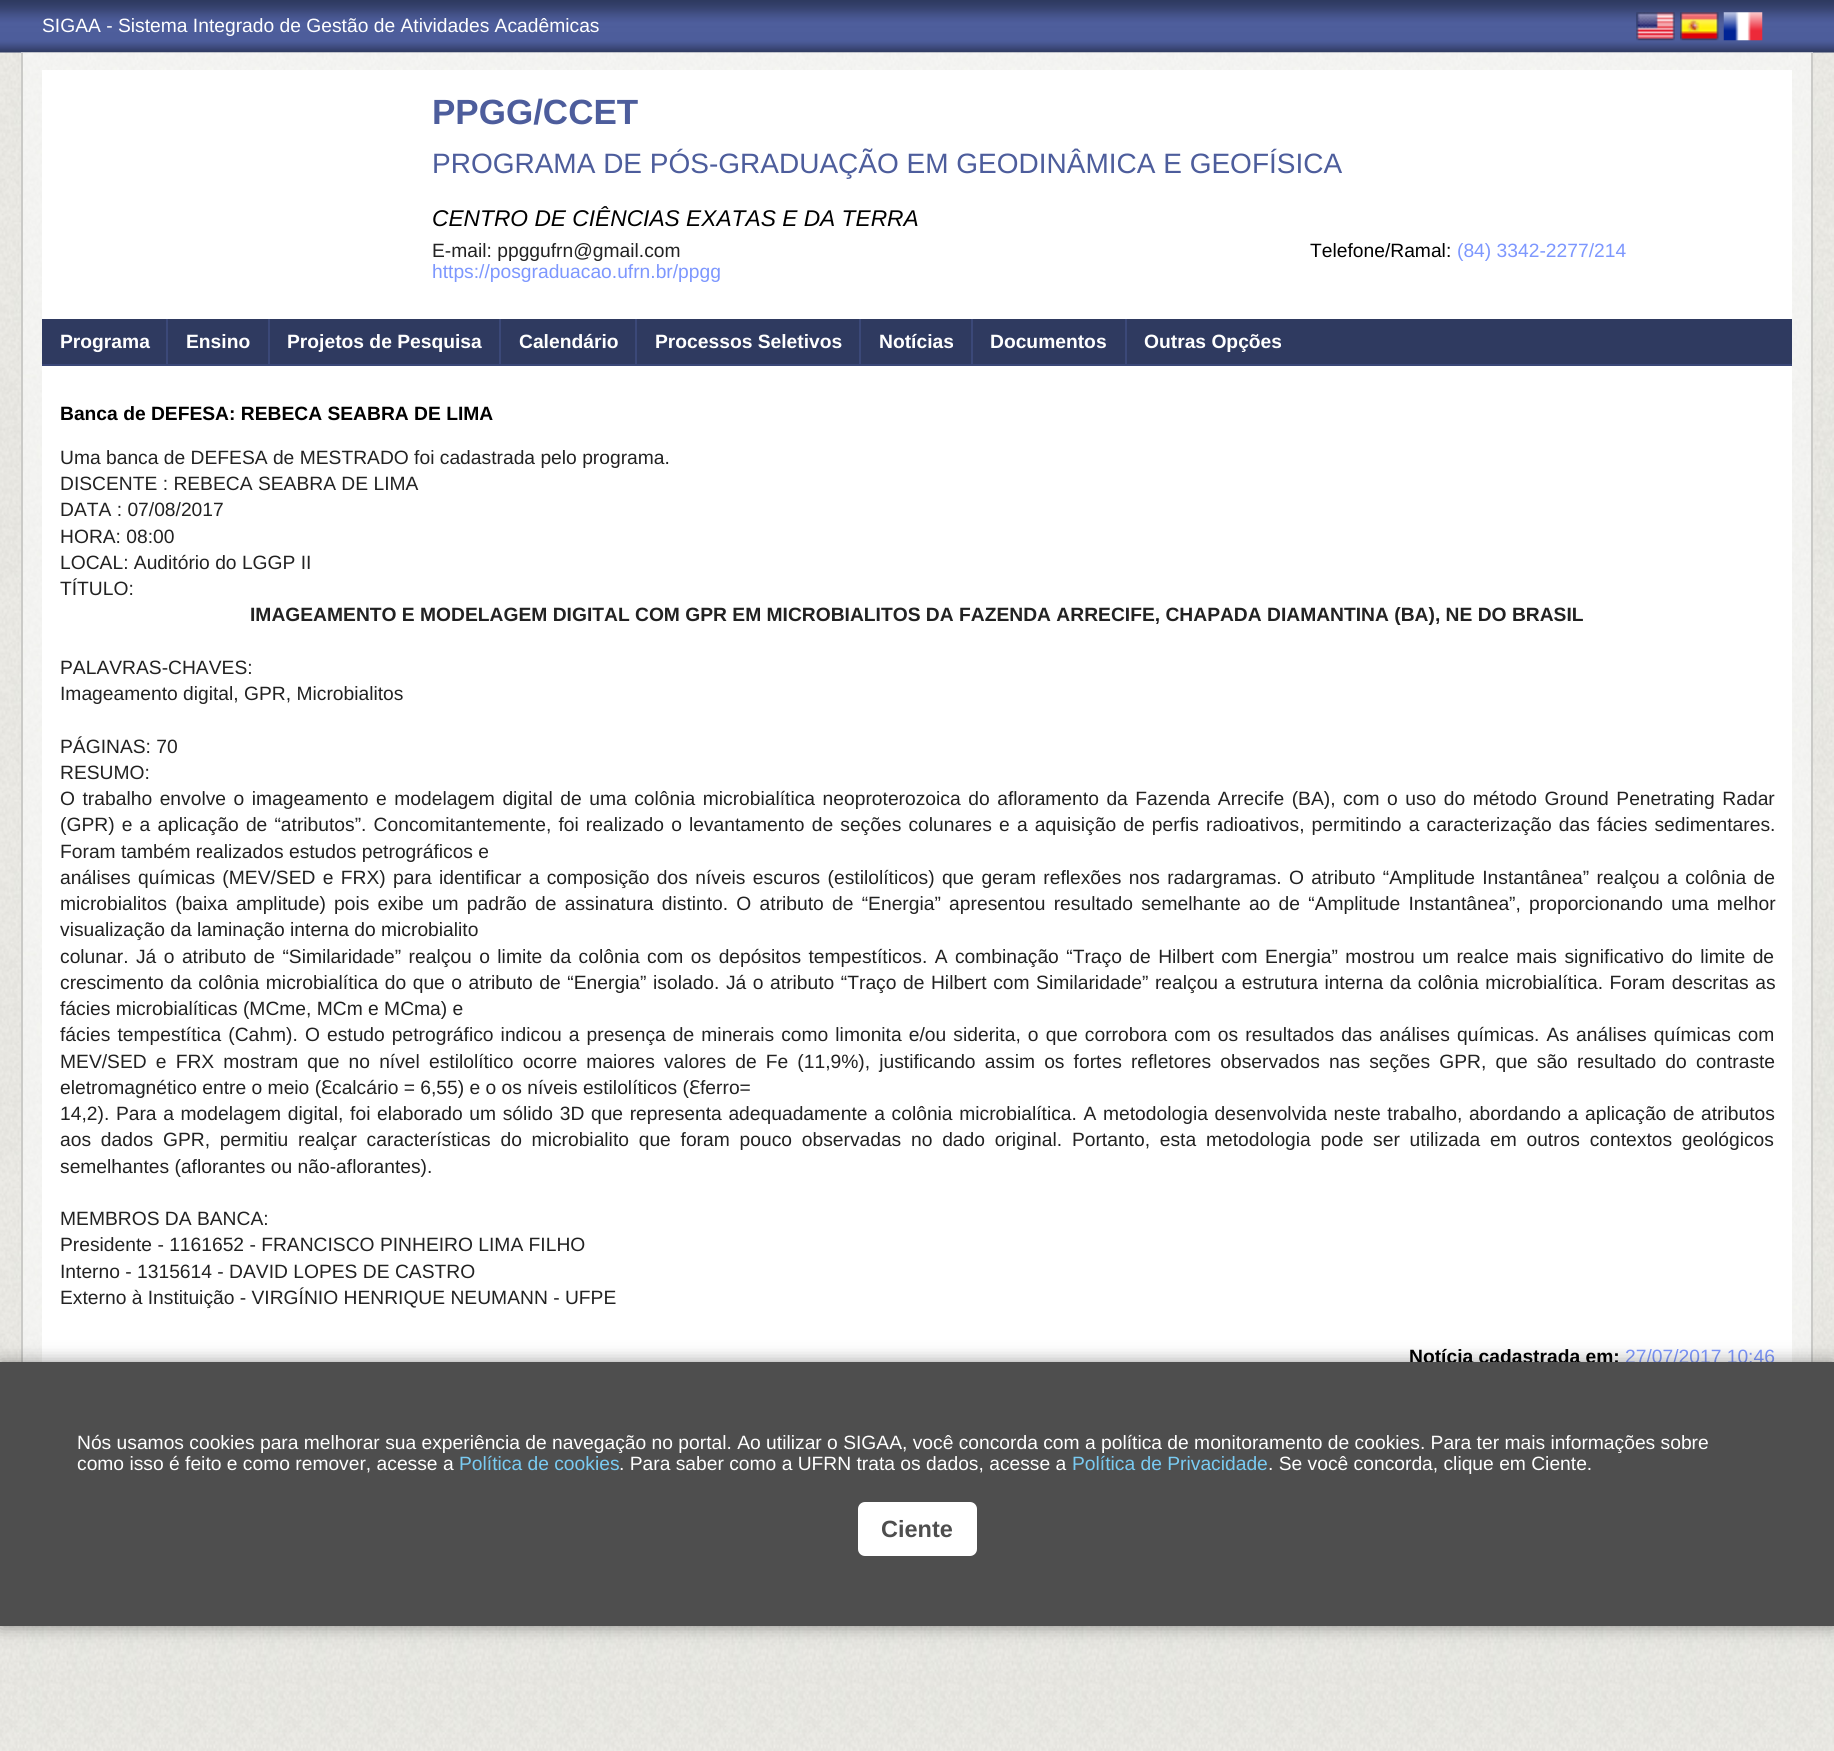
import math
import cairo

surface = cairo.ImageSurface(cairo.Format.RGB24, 1834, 1751)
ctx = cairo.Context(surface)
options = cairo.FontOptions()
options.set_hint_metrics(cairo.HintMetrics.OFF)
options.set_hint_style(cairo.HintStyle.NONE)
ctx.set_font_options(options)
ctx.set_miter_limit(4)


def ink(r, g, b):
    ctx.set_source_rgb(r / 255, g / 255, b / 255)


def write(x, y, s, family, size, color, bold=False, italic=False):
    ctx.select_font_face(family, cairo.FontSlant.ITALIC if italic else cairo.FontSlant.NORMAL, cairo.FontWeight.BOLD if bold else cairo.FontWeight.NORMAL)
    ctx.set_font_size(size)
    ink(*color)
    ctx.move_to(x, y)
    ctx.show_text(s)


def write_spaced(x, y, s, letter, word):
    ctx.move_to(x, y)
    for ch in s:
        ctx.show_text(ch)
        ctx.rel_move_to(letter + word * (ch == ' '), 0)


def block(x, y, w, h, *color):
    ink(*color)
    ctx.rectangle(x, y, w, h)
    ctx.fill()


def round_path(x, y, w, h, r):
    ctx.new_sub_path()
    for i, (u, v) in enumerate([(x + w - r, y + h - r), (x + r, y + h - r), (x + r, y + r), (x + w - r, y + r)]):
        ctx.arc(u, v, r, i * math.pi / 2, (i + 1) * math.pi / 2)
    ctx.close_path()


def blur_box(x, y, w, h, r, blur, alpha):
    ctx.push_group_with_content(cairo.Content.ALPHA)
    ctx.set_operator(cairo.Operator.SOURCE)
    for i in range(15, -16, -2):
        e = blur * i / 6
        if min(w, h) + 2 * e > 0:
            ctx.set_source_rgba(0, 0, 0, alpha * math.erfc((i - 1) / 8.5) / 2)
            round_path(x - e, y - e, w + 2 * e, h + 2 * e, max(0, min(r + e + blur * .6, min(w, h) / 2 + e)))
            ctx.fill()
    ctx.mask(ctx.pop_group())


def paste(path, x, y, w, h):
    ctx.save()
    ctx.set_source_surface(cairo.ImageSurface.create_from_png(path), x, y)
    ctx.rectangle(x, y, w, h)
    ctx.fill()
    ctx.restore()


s1 = dict(family="Liberation Sans", size=19.25, color=(255, 255, 255))
s2 = dict(family="Liberation Sans", size=35, color=(77, 93, 156), bold=True)
s3 = dict(family="Liberation Sans", size=28, color=(77, 93, 156))
s4 = dict(family="Liberation Sans", size=22.75, color=(0, 0, 0), italic=True)
s5 = dict(family="Liberation Sans", size=19.25, color=(34, 34, 34))
s6 = dict(family="Liberation Sans", size=19.25, color=(0, 0, 0))
s7 = dict(family="Liberation Sans", size=19.25, color=(125, 151, 254))
s8 = dict(family="Liberation Sans", size=19.25, color=(255, 255, 255), bold=True)
s9 = dict(family="Liberation Sans", size=19.25, color=(0, 0, 0), bold=True)
s10 = dict(family="Liberation Sans", size=19.25, color=(34, 34, 34), bold=True)
s11 = dict(family="Noto Sans", size=19.25, color=(34, 34, 34))
s12 = dict(family="Liberation Sans", size=19.25, color=(121, 203, 242))
s13 = dict(family="Liberation Sans", size=23.5, color=(78, 78, 78), bold=True)

ink(255, 255, 255)
ctx.paint()
paste("pic1.png", 0, 52, 1834, 1699)
paste("pic2.png", 0, 0, 1834, 53)
write(42, 32, "SIGAA - Sistema Integrado de Gestão de Atividades Acadêmicas", **s1)
paste("pic3.png", 1636, 12, 39, 29)
paste("pic4.png", 1680, 12, 39, 29)
paste("pic5.png", 1723, 12, 40, 29)
paste("pic6.png", 21, 52, 1792, 1310)
block(1811, 53, 2, 1309, 202, 202, 199)
block(21, 53, 2, 1309, 202, 202, 199)
block(42, 70, 1750, 1292, 255, 255, 255)
write(432, 124, "PPGG/CCET", **s2)
write(432, 173, "PROGRAMA DE PÓS-GRADUAÇÃO EM GEODINÂMICA E GEOFÍSICA", **s3)
write(432, 226, "CENTRO DE CIÊNCIAS EXATAS E DA TERRA", **s4)
write(432, 257, "E-mail: ppggufrn@gmail.com", **s5)
write(1310, 257, "Telefone/Ramal:", **s6)
write(1457, 257, "(84) 3342-2277/214", **s7)
write(432, 278, "https://posgraduacao.ufrn.br/ppgg", **s7)
block(42, 319, 1750, 45, 47, 58, 96)
block(42, 364, 1750, 2, 59, 72, 120)
write(60, 348, "Programa", **s8)
block(166, 319, 2, 47, 59, 72, 120)
write(186, 348, "Ensino", **s8)
block(268, 319, 2, 47, 59, 72, 120)
write(287, 348, "Projetos de Pesquisa", **s8)
block(499, 319, 2, 47, 59, 72, 120)
write(519, 348, "Calendário", **s8)
block(635, 319, 2, 47, 59, 72, 120)
write(655, 348, "Processos Seletivos", **s8)
block(859, 319, 2, 47, 59, 72, 120)
write(879, 348, "Notícias", **s8)
block(971, 319, 2, 47, 59, 72, 120)
write(990, 348, "Documentos", **s8)
block(1125, 319, 2, 47, 59, 72, 120)
write(1144, 348, "Outras Opções", **s8)
write(60, 420, "Banca de DEFESA: REBECA SEABRA DE LIMA", **s9)
write(60, 464, "Uma banca de DEFESA de MESTRADO foi cadastrada pelo programa.", **s5)
write(60, 490, "DISCENTE : REBECA SEABRA DE LIMA", **s5)
write(60, 516, "DATA : 07/08/2017", **s5)
write(60, 543, "HORA: 08:00", **s5)
write(60, 569, "LOCAL: Auditório do LGGP II", **s5)
write(60, 595, "TÍTULO:", **s5)
write(250, 621, "IMAGEAMENTO E MODELAGEM DIGITAL COM GPR EM MICROBIALITOS DA FAZENDA ARRECIFE, CHAPADA DIAMANTINA (BA), NE DO BRASIL", **s10)
write(60, 674, "PALAVRAS-CHAVES:", **s5)
write(60, 700, "Imageamento digital, GPR, Microbialitos", **s5)
write(60, 753, "PÁGINAS: 70", **s5)
write(60, 779, "RESUMO:", **s5)
write_spaced(60, 805, "O trabalho envolve o imageamento e modelagem digital de uma colônia microbialítica neoproterozoica do afloramento da Fazenda Arrecife (BA), com o uso do método Ground Penetrating Radar", 0, 2.2)
write_spaced(60, 831, "(GPR) e a aplicação de “atributos”. Concomitantemente, foi realizado o levantamento de seções colunares e a aquisição de perfis radioativos, permitindo a caracterização das fácies sedimentares.", 0, 1.8)
write(60, 858, "Foram também realizados estudos petrográficos e", **s5)
write_spaced(60, 884, "análises químicas (MEV/SED e FRX) para identificar a composição dos níveis escuros (estilolíticos) que geram reflexões nos radargramas. O atributo “Amplitude Instantânea” realçou a colônia de", 0, 2)
write_spaced(60, 910, "microbialitos (baixa amplitude) pois exibe um padrão de assinatura distinto. O atributo de “Energia” apresentou resultado semelhante ao de “Amplitude Instantânea”, proporcionando uma melhor", 0, 2.9)
write(60, 936, "visualização da laminação interna do microbialito", **s5)
write_spaced(60, 963, "colunar. Já o atributo de “Similaridade” realçou o limite da colônia com os depósitos tempestíticos. A combinação “Traço de Hilbert com Energia” mostrou um realce mais significativo do limite de", 0, 2.1)
write_spaced(60, 989, "crescimento da colônia microbialítica do que o atributo de “Energia” isolado. Já o atributo “Traço de Hilbert com Similaridade” realçou a estrutura interna da colônia microbialítica. Foram descritas as", 0, 1.2)
write(60, 1015, "fácies microbialíticas (MCme, MCm e MCma) e", **s5)
write_spaced(60, 1041, "fácies tempestítica (Cahm). O estudo petrográfico indicou a presença de minerais como limonita e/ou siderita, o que corrobora com os resultados das análises químicas. As análises químicas com", 0, 1.75)
write_spaced(60, 1068, "MEV/SED e FRX mostram que no nível estilolítico ocorre maiores valores de Fe (11,9%), justificando assim os fortes refletores observados nas seções GPR, que são resultado do contraste", 0, 3.8)
write(60, 1094, "eletromagnético entre o meio (", **s5)
write(321, 1094, "ℇ", **s11)
write(332, 1094, "calcário = 6,55) e o os níveis estilolíticos (", **s5)
write(689, 1094, "ℇ", **s11)
write(700, 1094, "ferro=", **s5)
write_spaced(60, 1120, "14,2). Para a modelagem digital, foi elaborado um sólido 3D que representa adequadamente a colônia microbialítica. A metodologia desenvolvida neste trabalho, abordando a aplicação de atributos", 0, 1.3)
write_spaced(60, 1146, "aos dados GPR, permitiu realçar características do microbialito que foram pouco observadas no dado original. Portanto, esta metodologia pode ser utilizada em outros contextos geológicos", 0, 4.4)
write(60, 1173, "semelhantes (aflorantes ou não-aflorantes).", **s5)
write(60, 1225, "MEMBROS DA BANCA:", **s5)
write(60, 1251, "Presidente - 1161652 - FRANCISCO PINHEIRO LIMA FILHO", **s5)
write(60, 1278, "Interno - 1315614 - DAVID LOPES DE CASTRO", **s5)
write(60, 1304, "Externo à Instituição - VIRGÍNIO HENRIQUE NEUMANN - UFPE", **s5)
write(1409, 1363, "Notícia cadastrada em:", **s9)
write(1625, 1363, "27/07/2017 10:46", **s7)
ink(0, 0, 0)
blur_box(0, 1362, 1834, 264, 0, 9, 0.4)
block(0, 1362, 1834, 264, 78, 78, 78)
write(77, 1449, "Nós usamos cookies para melhorar sua experiência de navegação no portal. Ao utilizar o SIGAA, você concorda com a política de monitoramento de cookies. Para ter mais informações sobre", **s1)
write(77, 1470, "como isso é feito e como remover, acesse a", **s1)
write(459, 1470, "Política de cookies", **s12)
write(619, 1470, ". Para saber como a UFRN trata os dados, acesse a", **s1)
write(1072, 1470, "Política de Privacidade", **s12)
write(1268, 1470, ". Se você concorda, clique em Ciente.", **s1)
round_path(858, 1502, 119, 54, 7)
ctx.fill()
write(881, 1537, "Ciente", **s13)
surface.write_to_png("screenshot.png")
